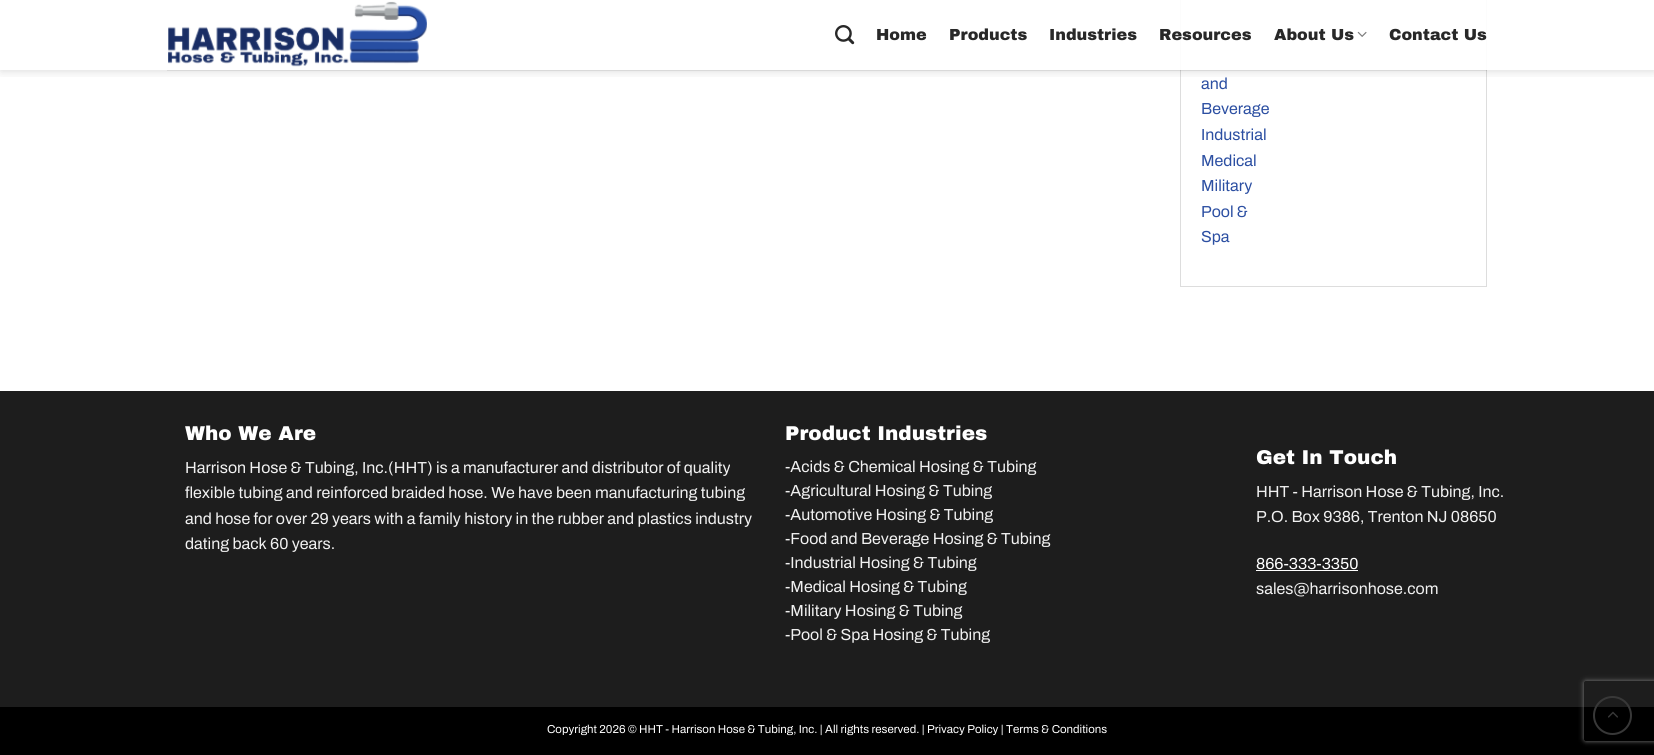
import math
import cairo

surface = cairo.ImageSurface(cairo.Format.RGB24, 1654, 755)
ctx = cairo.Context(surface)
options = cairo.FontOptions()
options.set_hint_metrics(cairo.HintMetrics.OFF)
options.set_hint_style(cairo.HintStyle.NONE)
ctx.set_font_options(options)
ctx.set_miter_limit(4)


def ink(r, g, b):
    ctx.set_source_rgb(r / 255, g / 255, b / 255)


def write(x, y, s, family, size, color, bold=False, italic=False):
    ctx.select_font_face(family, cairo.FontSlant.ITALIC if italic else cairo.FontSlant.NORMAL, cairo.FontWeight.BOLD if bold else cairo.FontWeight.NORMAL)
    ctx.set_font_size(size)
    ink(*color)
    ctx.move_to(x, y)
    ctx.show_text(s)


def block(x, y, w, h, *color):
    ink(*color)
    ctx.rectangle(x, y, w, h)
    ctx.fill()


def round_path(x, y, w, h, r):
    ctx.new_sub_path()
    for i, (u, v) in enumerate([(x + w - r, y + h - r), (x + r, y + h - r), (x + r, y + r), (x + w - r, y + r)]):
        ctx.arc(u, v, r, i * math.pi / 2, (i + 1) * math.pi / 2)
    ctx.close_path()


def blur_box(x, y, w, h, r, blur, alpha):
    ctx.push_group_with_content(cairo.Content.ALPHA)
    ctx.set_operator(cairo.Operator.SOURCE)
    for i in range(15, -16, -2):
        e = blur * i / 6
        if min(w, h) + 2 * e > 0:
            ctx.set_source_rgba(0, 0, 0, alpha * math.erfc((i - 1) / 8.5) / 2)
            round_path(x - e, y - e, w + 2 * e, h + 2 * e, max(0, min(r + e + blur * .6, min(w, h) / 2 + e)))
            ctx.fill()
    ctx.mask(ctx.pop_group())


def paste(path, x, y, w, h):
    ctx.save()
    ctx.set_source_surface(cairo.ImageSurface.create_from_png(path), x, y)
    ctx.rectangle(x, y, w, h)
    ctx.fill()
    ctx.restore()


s1 = dict(family="Archivo Black Black", size=16, color=(40, 40, 40))
s2 = dict(family="Archivo SemiBold", size=16, color=(44, 79, 162))
s3 = dict(family="Archivo Black Black", size=20, color=(255, 255, 255))
s4 = dict(family="Archivo SemiBold", size=16, color=(241, 241, 241))
s5 = dict(family="Archivo SemiBold", size=16, color=(255, 255, 255))
s6 = dict(family="Archivo SemiBold", size=11.5, color=(255, 255, 255))

ink(255, 255, 255)
ctx.paint()
ctx.rectangle(1180.5, -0.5, 306, 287)
ink(221, 221, 221)
ctx.set_line_width(1)
ctx.stroke()
ctx.save()
ctx.rectangle(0, 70, 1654, 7)
ctx.clip()
ink(0, 0, 0)
blur_box(1, 1, 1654, 70, 0, 5, 0.15)
ctx.restore()
ctx.set_source_rgba(1, 1, 1, 0.9)
ctx.rectangle(1180, 0, 307, 70)
ctx.fill()
paste("pic1.png", 168, 1, 259, 66)
paste("pic2.png", 835, 25, 20, 20)
write(876, 40, "Home", **s1)
write(949, 40, "Products", **s1)
write(1049, 40, "Industries", **s1)
write(1159, 40, "Resources", **s1)
write(1274, 40, "About Us", **s1)
paste("pic3.png", 1357, 31, 10, 6)
write(1389, 40, "Contact Us", **s1)
ctx.set_source_rgba(0.22, 0.22, 0.22, 0.1)
ctx.rectangle(167, 70, 1320, 1)
ctx.fill()
write(1201, 89, "and", **s2)
write(1201, 114, "Beverage", **s2)
write(1201, 140, "Industrial", **s2)
write(1201, 166, "Medical", **s2)
write(1201, 191, "Military", **s2)
write(1201, 217, "Pool &", **s2)
write(1201, 242, "Spa", **s2)
block(0, 391, 1654, 316, 29, 29, 29)
write(185, 440, "Who We Are", **s3)
write(185, 473, "Harrison Hose & Tubing, Inc.(HHT) is a manufacturer and distributor of quality", **s4)
write(185, 498, "flexible tubing and reinforced braided hose. We have been manufacturing tubing", **s4)
write(185, 524, "and hose for over 29 years with a family history in the rubber and plastics industry", **s4)
write(185, 549, "dating back 60 years.", **s4)
write(785, 440, "Product Industries", **s3)
write(785, 472, "-Acids & Chemical Hosing & Tubing", **s4)
write(785, 496, "-Agricultural Hosing & Tubing", **s4)
write(785, 520, "-Automotive Hosing & Tubing", **s4)
write(785, 544, "-Food and Beverage Hosing & Tubing", **s4)
write(785, 568, "-Industrial Hosing & Tubing", **s4)
write(785, 592, "-Medical Hosing & Tubing", **s4)
write(785, 616, "-Military Hosing & Tubing", **s4)
write(785, 640, "-Pool & Spa Hosing & Tubing", **s4)
write(1256, 464, "Get In Touch", **s3)
write(1256, 497, "HHT - Harrison Hose & Tubing, Inc.", **s4)
write(1256, 522, "P.O. Box 9386, Trenton NJ 08650", **s4)
write(1256, 569, "866-333-3350", **s5)
block(1256, 570, 102, 1, 255, 255, 255)
write(1256, 594, "sales@harrisonhose.com", **s4)
block(0, 707, 1654, 48, 0, 0, 0)
ctx.save()
ctx.set_fill_rule(cairo.FillRule.EVEN_ODD)
ctx.new_path()
ctx.move_to(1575, 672)
ctx.line_to(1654, 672)
ctx.line_to(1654, 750)
ctx.line_to(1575, 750)
ctx.close_path()
ctx.move_to(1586, 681)
ctx.line_to(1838, 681)
ctx.curve_to(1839, 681, 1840, 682, 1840, 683)
ctx.line_to(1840, 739)
ctx.curve_to(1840, 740, 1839, 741, 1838, 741)
ctx.line_to(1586, 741)
ctx.curve_to(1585, 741, 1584, 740, 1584, 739)
ctx.line_to(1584, 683)
ctx.curve_to(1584, 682, 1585, 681, 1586, 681)
ctx.close_path()
ctx.clip()
ink(128, 128, 128)
blur_box(1584, 681, 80, 60, 2, 2.5, 1)
ctx.restore()
write(547, 733, "Copyright 2026 © HHT - Harrison Hose & Tubing, Inc. | All rights reserved. | Privacy Policy | Terms & Conditions", **s6)
ctx.new_path()
ctx.arc(1612.5, 715.5, 18.5, 0, 2 * math.pi)
ink(56, 56, 56)
ctx.set_line_width(2)
ctx.stroke()
paste("pic4.png", 1608, 711, 10, 7)
surface.write_to_png("screenshot.png")
